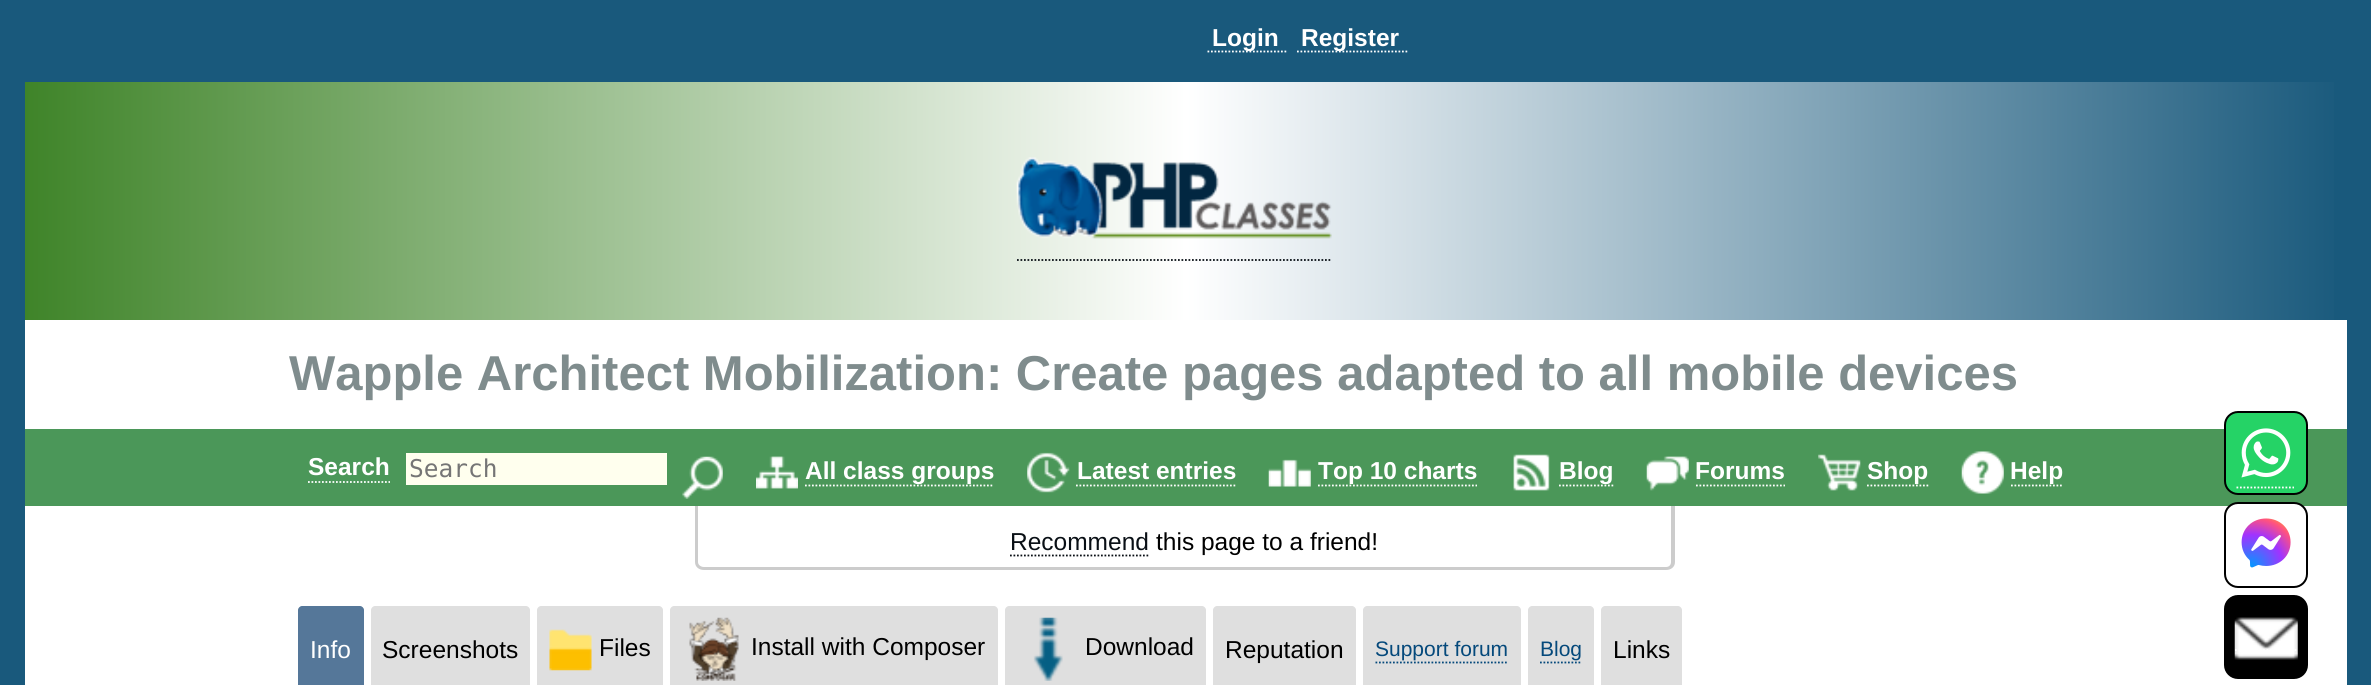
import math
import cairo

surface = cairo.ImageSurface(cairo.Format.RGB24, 2371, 685)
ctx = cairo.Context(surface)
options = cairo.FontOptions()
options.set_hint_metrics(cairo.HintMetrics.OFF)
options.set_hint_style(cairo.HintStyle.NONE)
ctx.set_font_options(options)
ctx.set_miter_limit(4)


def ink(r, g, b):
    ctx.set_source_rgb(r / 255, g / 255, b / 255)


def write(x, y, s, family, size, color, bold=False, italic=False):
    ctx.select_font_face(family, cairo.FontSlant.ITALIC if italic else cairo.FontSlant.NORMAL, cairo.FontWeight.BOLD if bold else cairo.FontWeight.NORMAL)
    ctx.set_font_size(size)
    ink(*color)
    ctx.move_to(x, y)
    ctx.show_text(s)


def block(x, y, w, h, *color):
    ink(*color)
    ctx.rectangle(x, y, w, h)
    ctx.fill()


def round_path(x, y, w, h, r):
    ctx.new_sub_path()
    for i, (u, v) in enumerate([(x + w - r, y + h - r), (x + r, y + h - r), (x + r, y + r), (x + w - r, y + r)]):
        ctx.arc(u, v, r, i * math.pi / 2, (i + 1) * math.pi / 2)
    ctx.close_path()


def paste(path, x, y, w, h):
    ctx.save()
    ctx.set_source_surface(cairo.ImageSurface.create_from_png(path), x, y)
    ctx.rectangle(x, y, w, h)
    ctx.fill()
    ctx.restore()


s1 = dict(family="Liberation Sans", size=24.5, color=(255, 255, 255), bold=True)
s2 = dict(family="Liberation Sans", size=49, color=(127, 140, 141), bold=True)
s3 = dict(family="DejaVu Sans Mono", size=24.5, color=(117, 117, 117))
s4 = dict(family="Liberation Sans", size=24.5, color=(9, 15, 21))
s5 = dict(family="Liberation Sans", size=24.5, color=(0, 0, 0))
s6 = dict(family="Liberation Sans", size=24.5, color=(255, 255, 255))
s7 = dict(family="Liberation Sans", size=21, color=(5, 73, 123))

ink(25, 89, 124)
ctx.paint()
block(25, 320, 2322, 365, 255, 255, 255)
ctx.new_path()
ctx.move_to(1207.5, 51.5)
ctx.line_to(1288, 51.5)
ctx.set_line_width(1.8)
ctx.set_dash([1.75, 1.75])
ctx.stroke()
write(1212, 46, "Login", **s1)
ctx.new_path()
ctx.move_to(1297, 51.5)
ctx.line_to(1409, 51.5)
ctx.stroke()
write(1301, 46, "Register", **s1)
gradient = cairo.LinearGradient(25, 201, 2347, 201)
gradient.add_color_stop_rgba(0, 0.247, 0.518, 0.161, 1)
gradient.add_color_stop_rgba(0.5, 1, 1, 1, 1)
gradient.add_color_stop_rgba(1, 0.098, 0.349, 0.486, 1)
ctx.set_source(gradient)
ctx.rectangle(25, 82, 2309, 238)
ctx.fill()
paste("pic1.png", 1016, 157, 316, 82)
ctx.new_path()
ctx.move_to(1017, 260)
ctx.line_to(1332, 260)
ink(9, 15, 21)
ctx.stroke()
write(289, 390, "Wapple Architect Mobilization: Create pages adapted to all mobile devices", **s2)
block(25, 429, 2322, 77, 75, 151, 89)
write(308, 475, "Search", **s1)
ctx.new_path()
ctx.move_to(308, 482)
ctx.line_to(390, 482)
ctx.stroke()
block(406, 453, 261, 32, 255, 255, 238)
write(409, 477, "Search", **s3)
paste("pic2.png", 682, 456, 41, 43)
paste("pic3.png", 756, 456, 42, 33)
ctx.new_path()
ctx.move_to(805, 485.5)
ctx.line_to(994, 485.5)
ink(255, 255, 255)
ctx.stroke()
write(805, 479, "All class groups", **s1)
paste("pic4.png", 1027, 452, 43, 41)
write(1077, 479, "Latest entries", **s1)
ctx.new_path()
ctx.move_to(1076, 485.5)
ctx.line_to(1235.5, 485.5)
ctx.stroke()
paste("pic5.png", 1268, 459, 43, 28)
ctx.new_path()
ctx.move_to(1318, 485.5)
ctx.line_to(1477, 485.5)
ctx.stroke()
write(1318, 479, "Top 10 charts", **s1)
paste("pic6.png", 1513, 454, 37, 37)
ctx.new_path()
ctx.move_to(1559, 485.5)
ctx.line_to(1613.5, 485.5)
ctx.stroke()
write(1559, 479, "Blog", **s1)
paste("pic7.png", 1646, 456, 43, 35)
write(1695, 479, "Forums", **s1)
ctx.new_path()
ctx.move_to(1696, 485.5)
ctx.line_to(1785, 485.5)
ctx.stroke()
paste("pic8.png", 1818, 454, 43, 37)
ctx.new_path()
ctx.move_to(1867, 485.5)
ctx.line_to(1928.5, 485.5)
ctx.stroke()
write(1867, 479, "Shop", **s1)
paste("pic9.png", 1961, 451, 43, 43)
ctx.new_path()
ctx.move_to(2011, 485.5)
ctx.line_to(2063, 485.5)
ctx.stroke()
write(2010, 479, "Help", **s1)
ink(204, 204, 204)
ctx.set_fill_rule(cairo.FillRule.EVEN_ODD)
ctx.new_path()
ctx.move_to(695, 506)
ctx.line_to(1675, 506)
ctx.line_to(1675, 562)
ctx.curve_to(1675, 567, 1671, 570, 1666, 570)
ctx.line_to(704, 570)
ctx.curve_to(699, 570, 695, 567, 695, 562)
ctx.close_path()
ctx.move_to(698, 506)
ctx.line_to(1671, 506)
ctx.line_to(1671, 562)
ctx.curve_to(1671, 565, 1669, 567, 1666, 567)
ctx.line_to(704, 567)
ctx.curve_to(701, 567, 698, 565, 698, 562)
ctx.close_path()
ctx.fill()
write(1010, 550, "Recommend", **s4)
ctx.new_path()
ctx.move_to(1010, 555.5)
ctx.line_to(1150, 555.5)
ctx.stroke()
write(1156, 550, "this page to a friend!", **s5)
ink(85, 119, 153)
ctx.new_path()
ctx.move_to(302, 606)
ctx.line_to(360, 606)
ctx.curve_to(362, 606, 364, 608, 364, 610)
ctx.line_to(364, 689)
ctx.line_to(298, 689)
ctx.line_to(298, 610)
ctx.curve_to(298, 608, 300, 606, 302, 606)
ctx.close_path()
ctx.fill()
write(310, 658, "Info", **s6)
ink(223, 223, 223)
ctx.new_path()
ctx.move_to(375, 606)
ctx.line_to(526, 606)
ctx.curve_to(528, 606, 530, 608, 530, 610)
ctx.line_to(530, 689)
ctx.line_to(371, 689)
ctx.line_to(371, 610)
ctx.curve_to(371, 608, 373, 606, 375, 606)
ctx.close_path()
ctx.fill()
write(382, 658, "Screenshots", **s5)
ink(223, 223, 223)
ctx.new_path()
ctx.move_to(541, 606)
ctx.line_to(659, 606)
ctx.curve_to(661, 606, 663, 608, 663, 610)
ctx.line_to(663, 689)
ctx.line_to(537, 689)
ctx.line_to(537, 610)
ctx.curve_to(537, 608, 539, 606, 541, 606)
ctx.close_path()
ctx.fill()
paste("pic10.png", 549, 629, 43, 42)
write(599, 656, "Files", **s5)
ink(223, 223, 223)
ctx.new_path()
ctx.move_to(674, 606)
ctx.line_to(994, 606)
ctx.curve_to(996, 606, 998, 608, 998, 610)
ctx.line_to(998, 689)
ctx.line_to(670, 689)
ctx.line_to(670, 610)
ctx.curve_to(670, 608, 672, 606, 674, 606)
ctx.close_path()
ctx.fill()
paste("pic11.png", 689, 617, 50, 64)
write(751, 655, "Install with Composer", **s5)
ink(223, 223, 223)
ctx.new_path()
ctx.move_to(1009, 606)
ctx.line_to(1202, 606)
ctx.curve_to(1204, 606, 1206, 608, 1206, 610)
ctx.line_to(1206, 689)
ctx.line_to(1005, 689)
ctx.line_to(1005, 610)
ctx.curve_to(1005, 608, 1007, 606, 1009, 606)
ctx.close_path()
ctx.fill()
paste("pic12.png", 1033, 617, 30, 64)
write(1085, 655, "Download", **s5)
ink(223, 223, 223)
ctx.new_path()
ctx.move_to(1217, 606)
ctx.line_to(1352, 606)
ctx.curve_to(1354, 606, 1356, 608, 1356, 610)
ctx.line_to(1356, 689)
ctx.line_to(1213, 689)
ctx.line_to(1213, 610)
ctx.curve_to(1213, 608, 1215, 606, 1217, 606)
ctx.close_path()
ctx.fill()
write(1225, 658, "Reputation", **s5)
ink(223, 223, 223)
ctx.new_path()
ctx.move_to(1367, 606)
ctx.line_to(1517, 606)
ctx.curve_to(1519, 606, 1521, 608, 1521, 610)
ctx.line_to(1521, 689)
ctx.line_to(1363, 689)
ctx.line_to(1363, 610)
ctx.curve_to(1363, 608, 1365, 606, 1367, 606)
ctx.close_path()
ctx.fill()
write(1375, 656, "Support forum", **s7)
ctx.new_path()
ctx.move_to(1375.5, 662.5)
ctx.line_to(1508.5, 662.5)
ctx.stroke()
ink(223, 223, 223)
ctx.new_path()
ctx.move_to(1532, 606)
ctx.line_to(1590, 606)
ctx.curve_to(1592, 606, 1594, 608, 1594, 610)
ctx.line_to(1594, 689)
ctx.line_to(1528, 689)
ctx.line_to(1528, 610)
ctx.curve_to(1528, 608, 1530, 606, 1532, 606)
ctx.close_path()
ctx.fill()
write(1540, 656, "Blog", **s7)
ctx.new_path()
ctx.move_to(1540, 662.5)
ctx.line_to(1582, 662.5)
ctx.stroke()
ink(223, 223, 223)
ctx.new_path()
ctx.move_to(1605, 606)
ctx.line_to(1678, 606)
ctx.curve_to(1680, 606, 1682, 608, 1682, 610)
ctx.line_to(1682, 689)
ctx.line_to(1601, 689)
ctx.line_to(1601, 610)
ctx.curve_to(1601, 608, 1603, 606, 1605, 606)
ctx.close_path()
ctx.fill()
write(1613, 658, "Links", **s5)
ink(37, 211, 102)
round_path(2225, 412, 82, 82, 13)
ctx.fill_preserve()
ink(0, 0, 0)
ctx.set_line_width(2)
ctx.set_dash([])
ctx.stroke()
paste("pic13.png", 2241, 428, 50, 50)
ctx.new_path()
ctx.move_to(2236.5, 487.5)
ctx.line_to(2294, 487.5)
ink(255, 255, 255)
ctx.set_line_width(1.8)
ctx.set_dash([1.75, 1.75])
ctx.stroke()
round_path(2225, 503, 82, 84, 13)
ctx.fill_preserve()
ink(0, 0, 0)
ctx.set_line_width(2)
ctx.set_dash([])
ctx.stroke()
paste("pic14.png", 2241, 518, 50, 50)
round_path(2225, 596, 82, 82, 13)
ctx.fill_preserve()
ctx.stroke()
ctx.new_path()
ctx.move_to(2235, 650)
ctx.line_to(2298, 650)
ink(255, 255, 255)
ctx.set_line_width(1.8)
ctx.set_dash([1.75, 1.75])
ctx.stroke()
paste("pic15.png", 2234, 617, 64, 43)
surface.write_to_png("screenshot.png")
